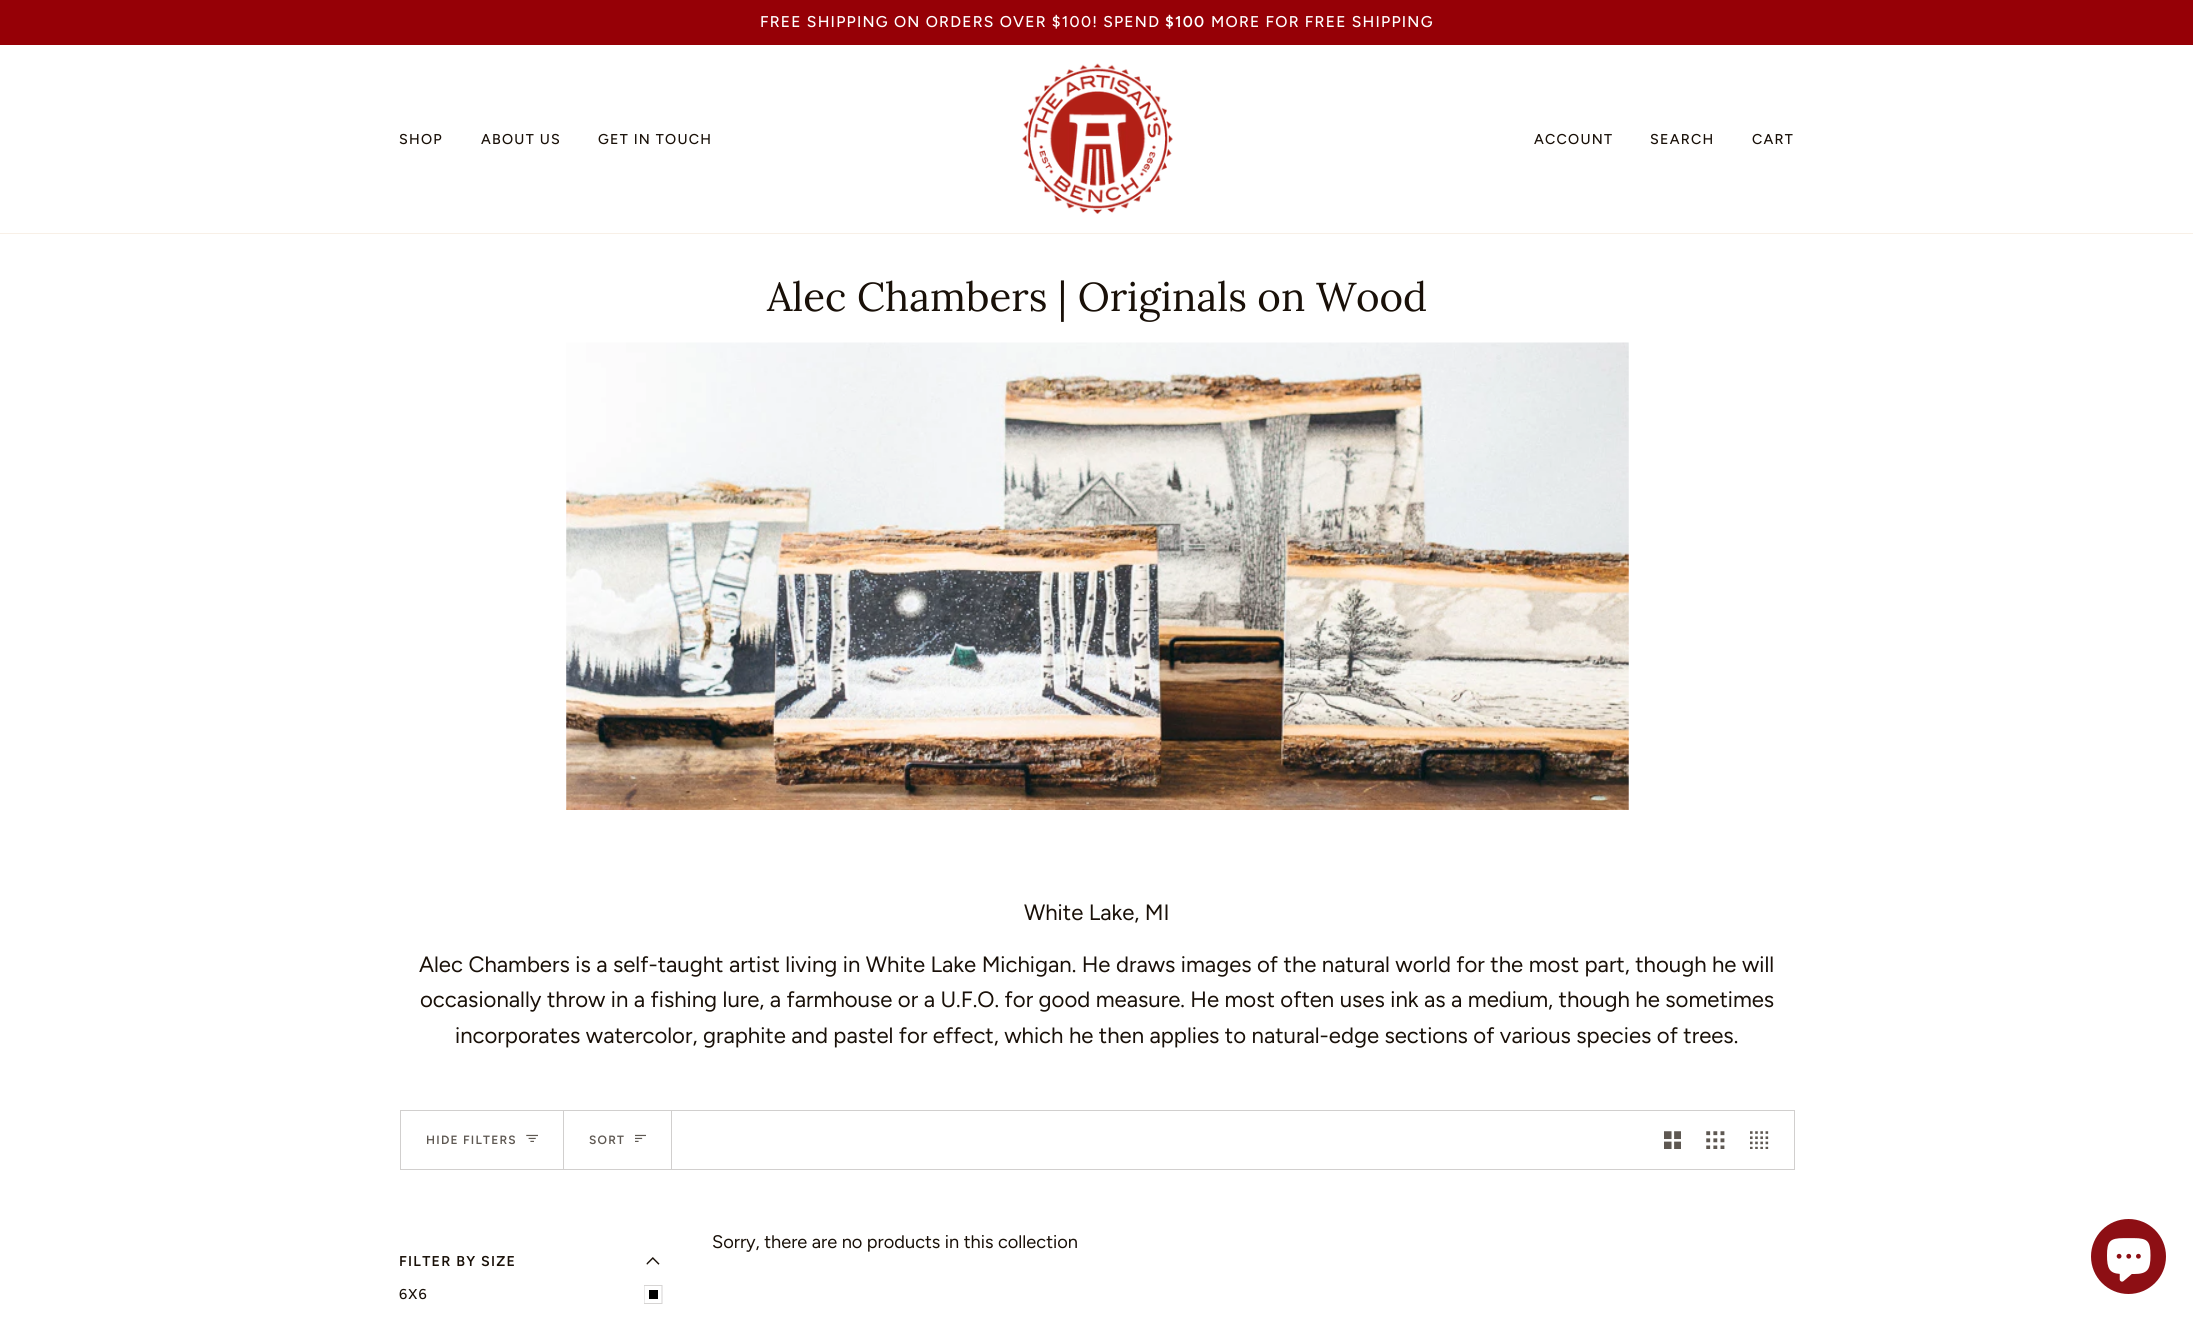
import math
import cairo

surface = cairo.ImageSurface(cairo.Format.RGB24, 2193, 1320)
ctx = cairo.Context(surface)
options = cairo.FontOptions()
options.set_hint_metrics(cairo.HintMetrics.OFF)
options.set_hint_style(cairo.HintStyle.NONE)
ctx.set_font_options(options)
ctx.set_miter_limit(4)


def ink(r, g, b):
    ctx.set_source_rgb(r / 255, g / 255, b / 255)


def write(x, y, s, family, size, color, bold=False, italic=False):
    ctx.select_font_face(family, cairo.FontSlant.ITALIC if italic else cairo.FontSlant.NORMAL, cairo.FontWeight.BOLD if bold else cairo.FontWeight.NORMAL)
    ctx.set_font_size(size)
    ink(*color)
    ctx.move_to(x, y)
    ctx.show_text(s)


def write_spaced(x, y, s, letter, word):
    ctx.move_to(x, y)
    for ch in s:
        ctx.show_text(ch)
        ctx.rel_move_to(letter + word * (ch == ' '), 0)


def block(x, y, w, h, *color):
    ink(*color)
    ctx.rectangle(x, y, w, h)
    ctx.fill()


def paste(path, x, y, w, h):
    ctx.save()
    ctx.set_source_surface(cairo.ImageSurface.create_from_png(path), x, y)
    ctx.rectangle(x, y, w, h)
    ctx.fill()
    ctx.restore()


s1 = dict(family="Lora", size=40.25, color=(25, 16, 8))
s2 = dict(family="Figtree", size=22.15, color=(25, 16, 8))
s3 = dict(family="Figtree", size=18.2, color=(25, 16, 8))

ink(255, 255, 255)
ctx.paint()
block(0, 0, 2193, 45, 150, 0, 6)
ctx.select_font_face("Figtree Medium")
ctx.set_font_size(15.6)
ink(255, 255, 255)
write_spaced(760, 27, "FREE SHIPPING ON ORDERS OVER $100! SPEND", 1.25, 0)
ctx.select_font_face("Figtree SemiBold")
write_spaced(1165, 27, "$100", 1.25, 0)
ctx.select_font_face("Figtree Medium")
write_spaced(1211, 27, "MORE FOR FREE SHIPPING", 1.25, 0)
block(0, 233, 2193, 1, 248, 240, 231)
ctx.set_font_size(14.25)
ink(25, 16, 8)
write_spaced(399, 144, "SHOP", 1.25, 0)
write_spaced(481, 144, "ABOUT US", 1.25, 0)
write_spaced(598, 144, "GET IN TOUCH", 1.25, 0)
paste("pic1.png", 1022, 63, 151, 151)
write_spaced(1534, 144, "ACCOUNT", 1.25, 0)
write_spaced(1650, 144, "SEARCH", 1.25, 0)
write_spaced(1752, 144, "CART", 1.25, 0)
write(767, 311, "Alec Chambers | Originals on Wood", **s1)
paste("pic2.png", 566, 342, 1063, 468)
write(1024, 920, "White Lake, MI", **s2)
write(419, 972, "Alec Chambers is a self-taught artist living in White Lake Michigan. He draws images of the natural world for the most part, though he will", **s2)
write(420, 1007, "occasionally throw in a fishing lure, a farmhouse or a U.F.O. for good measure. He most often uses ink as a medium, though he sometimes", **s2)
write(455, 1043, "incorporates watercolor, graphite and pastel for effect, which he then applies to natural-edge sections of various species of trees.", **s2)
ctx.rectangle(400.5, 1110.5, 1394, 59)
ink(209, 207, 206)
ctx.set_line_width(1)
ctx.stroke()
block(563, 1111, 1, 58, 209, 207, 206)
ctx.select_font_face("Figtree SemiBold")
ctx.set_font_size(12)
ink(94, 88, 82)
write_spaced(426, 1144, "HIDE FILTERS", 1.25, 0)
paste("pic3.png", 526, 1134, 12, 8)
block(671, 1111, 1, 58, 209, 207, 206)
ink(94, 88, 82)
write_spaced(589, 1144, "SORT", 1.25, 0)
paste("pic4.png", 635, 1134, 11, 8)
paste("pic5.png", 1664, 1131, 17, 18)
paste("pic6.png", 1706, 1131, 19, 18)
paste("pic7.png", 1750, 1131, 19, 18)
write(712, 1248, "Sorry, there are no products in this collection", **s3)
ctx.select_font_face("Figtree SemiBold")
ctx.set_font_size(14.25)
write_spaced(399, 1266, "FILTER BY SIZE", 1.25, 0)
paste("pic8.png", 646, 1257, 14, 8)
ctx.select_font_face("Figtree Medium")
write_spaced(399, 1299, "6X6", 1.25, 0)
ctx.save()
ctx.rectangle(644, 1285, 19, 19)
ctx.clip()
ctx.new_path()
ctx.move_to(644, 1285.5)
ctx.line_to(662, 1285.5)
ctx.line_to(662, 1303.5)
ctx.line_to(644, 1303.5)
ctx.close_path()
ink(209, 207, 206)
ctx.set_line_width(0.9)
ctx.stroke()
ctx.restore()
block(649, 1290, 9, 9, 0, 0, 0)
ink(141, 15, 20)
ctx.arc(2128.5, 1256.5, 37.5, 0, 2 * math.pi)
ctx.fill()
paste("pic9.png", 2107, 1238, 44, 44)
surface.write_to_png("screenshot.png")
